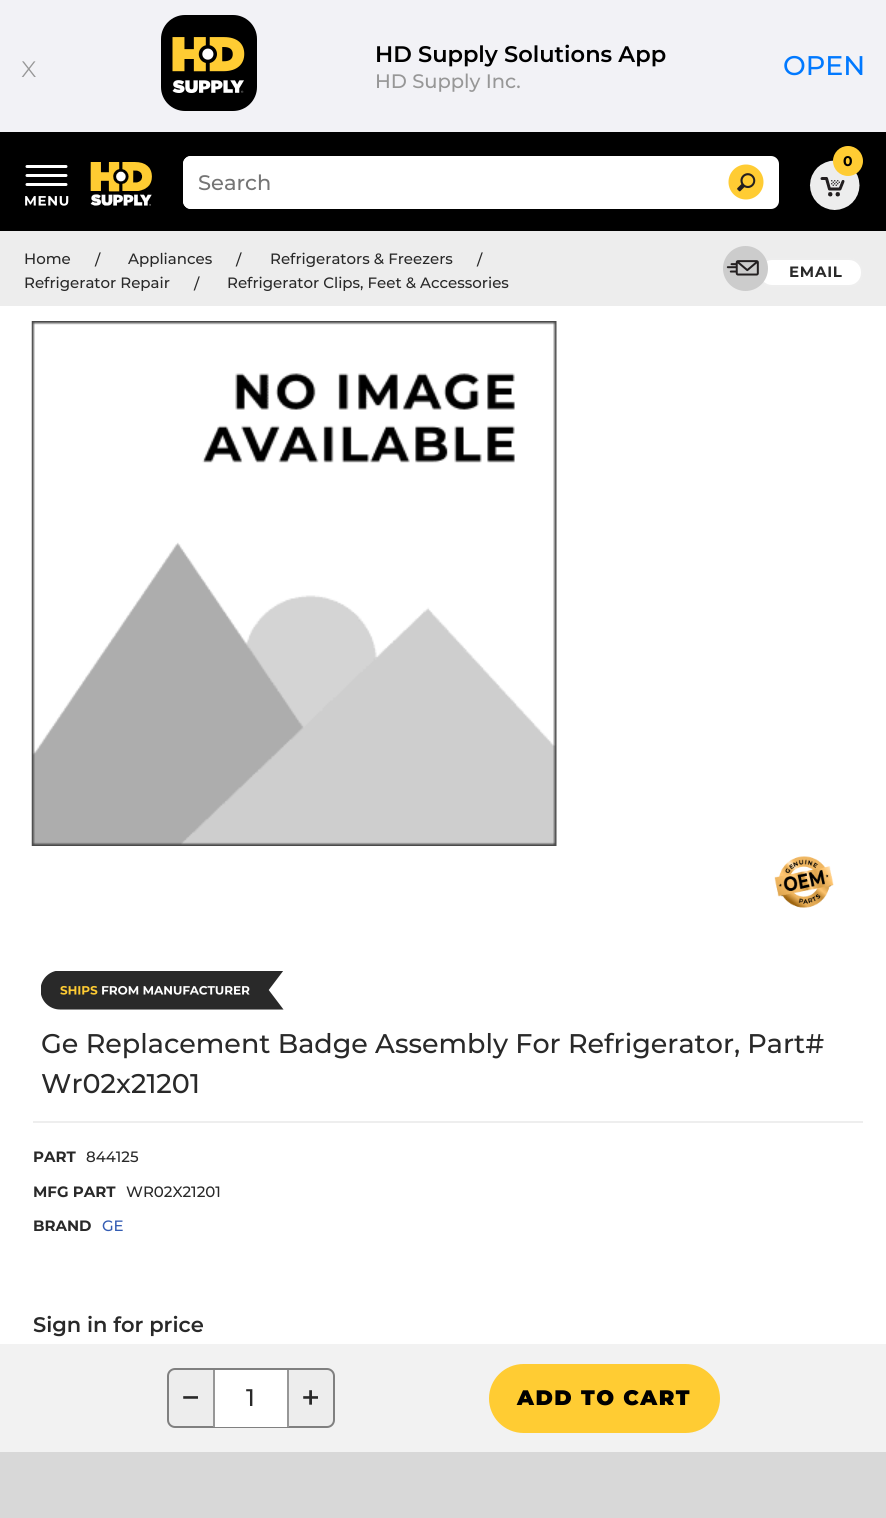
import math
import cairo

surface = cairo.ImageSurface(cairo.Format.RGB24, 886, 1518)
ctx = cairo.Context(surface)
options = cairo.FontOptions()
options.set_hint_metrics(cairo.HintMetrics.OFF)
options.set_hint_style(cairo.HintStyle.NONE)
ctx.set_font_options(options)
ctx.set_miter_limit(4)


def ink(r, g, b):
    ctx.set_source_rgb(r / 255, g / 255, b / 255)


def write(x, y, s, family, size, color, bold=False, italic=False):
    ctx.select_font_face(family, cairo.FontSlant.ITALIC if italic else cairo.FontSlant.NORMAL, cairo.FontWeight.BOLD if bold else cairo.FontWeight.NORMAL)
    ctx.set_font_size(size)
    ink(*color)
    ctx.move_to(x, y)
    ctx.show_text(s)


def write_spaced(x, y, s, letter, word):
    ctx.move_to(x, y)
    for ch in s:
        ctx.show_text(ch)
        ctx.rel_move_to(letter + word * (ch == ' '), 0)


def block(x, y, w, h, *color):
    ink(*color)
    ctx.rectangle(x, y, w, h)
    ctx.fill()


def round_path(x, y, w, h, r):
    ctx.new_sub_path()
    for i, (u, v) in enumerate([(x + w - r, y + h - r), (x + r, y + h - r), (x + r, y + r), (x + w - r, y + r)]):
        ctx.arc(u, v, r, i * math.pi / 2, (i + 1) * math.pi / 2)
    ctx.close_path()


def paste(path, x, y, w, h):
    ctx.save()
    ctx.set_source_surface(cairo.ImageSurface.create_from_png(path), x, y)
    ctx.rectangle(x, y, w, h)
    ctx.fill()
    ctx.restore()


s1 = dict(family="Montserrat Light", size=30, color=(151, 151, 151))
s2 = dict(family="Montserrat SemiBold", size=22.5, color=(0, 0, 0))
s3 = dict(family="Montserrat Medium", size=19.5, color=(151, 151, 151))
s4 = dict(family="Montserrat Medium", size=27, color=(1, 121, 255))
s5 = dict(family="Montserrat Medium", size=21, color=(117, 117, 117))
s6 = dict(family="Montserrat", size=14, color=(0, 0, 0), bold=True)
s7 = dict(family="Montserrat Medium", size=15, color=(41, 41, 41))
s8 = dict(family="Montserrat Medium", size=27, color=(41, 41, 41))
s9 = dict(family="Montserrat", size=15, color=(41, 41, 41), bold=True)
s10 = dict(family="Montserrat Medium", size=15, color=(51, 92, 179))
s11 = dict(family="Montserrat SemiBold", size=21, color=(41, 41, 41))
s12 = dict(family="Montserrat Medium", size=33, color=(41, 41, 41))
s13 = dict(family="Montserrat Medium", size=24, color=(41, 41, 41))

ink(255, 255, 255)
ctx.paint()
block(0, 0, 886, 132, 242, 242, 246)
write(21, 77, "x", **s1)
paste("pic1.png", 161, 15, 96, 96)
write(375, 62, "HD Supply Solutions App", **s2)
write(375, 88, "HD Supply Inc.", **s3)
write(783, 75, "OPEN", **s4)
block(0, 132, 886, 99, 0, 0, 0)
paste("pic2.png", 25, 165, 44, 41)
paste("pic3.png", 90, 162, 62, 44)
ink(255, 255, 255)
round_path(183, 156, 596, 53, 8)
ctx.fill()
round_path(183, 156, 531, 53, 8)
ctx.fill()
write(198, 190, "Search", **s5)
paste("pic4.png", 728, 164, 36, 36)
paste("pic5.png", 809, 160, 51, 50)
ink(255, 204, 51)
ctx.arc(848, 161, 15, 0, 2 * math.pi)
ctx.fill()
write(843, 166, "0", **s6)
block(0, 231, 886, 75, 237, 237, 237)
write(24, 264, "Home", **s7)
write(95, 265, "/", **s7)
write(128, 264, "Appliances", **s7)
write(236, 265, "/", **s7)
write(270, 264, "Refrigerators & Freezers", **s7)
write(477, 265, "/", **s7)
write(24, 288, "Refrigerator Repair", **s7)
write(194, 289, "/", **s7)
write(227, 288, "Refrigerator Clips, Feet & Accessories", **s7)
ink(255, 255, 255)
round_path(759, 259, 103, 27, 13)
ctx.fill_preserve()
ink(238, 238, 238)
ctx.stroke()
paste("pic6.png", 723, 246, 45, 45)
ctx.select_font_face("Montserrat", cairo.FontSlant.NORMAL, cairo.FontWeight.BOLD)
ink(41, 41, 41)
write_spaced(789, 277, "EMAIL", 0.75, 0)
paste("pic7.png", 31, 321, 526, 525)
paste("pic8.png", 774, 856, 60, 52)
paste("pic9.png", 41, 971, 243, 39)
write(41, 1053, "Ge Replacement Badge Assembly For Refrigerator, Part#", **s8)
write(41, 1093, "Wr02x21201", **s8)
block(33, 1121, 830, 2, 238, 238, 238)
write(33, 1162, "PART", **s9)
write(86, 1162, "844125", **s7)
write(33, 1197, "MFG PART", **s9)
write(126, 1197, "WR02X21201", **s7)
write(33, 1231, "BRAND", **s9)
write(102, 1231, "GE", **s10)
write(33, 1332, "Sign in for price", **s11)
block(0, 1344, 886, 108, 242, 242, 242)
ink(237, 237, 237)
round_path(168, 1369, 166, 58, 7)
ctx.fill_preserve()
ink(128, 128, 128)
ctx.stroke()
write(181, 1409, "−", **s12)
block(215, 1370, 72, 57, 255, 255, 255)
block(287, 1370, 2, 57, 151, 151, 151)
block(213, 1370, 2, 57, 151, 151, 151)
write(246, 1406, "1", **s13)
write(301, 1409, "+", **s12)
ink(255, 204, 51)
round_path(491.5, 1366.5, 226, 64, 32)
ctx.fill_preserve()
ctx.set_line_width(5)
ctx.stroke()
ctx.select_font_face("Montserrat Black")
ctx.set_font_size(21)
ink(0, 0, 0)
write_spaced(517, 1405, "ADD TO CART", 1.5, 0)
block(0, 1452, 886, 66, 216, 216, 216)
surface.write_to_png("screenshot.png")
